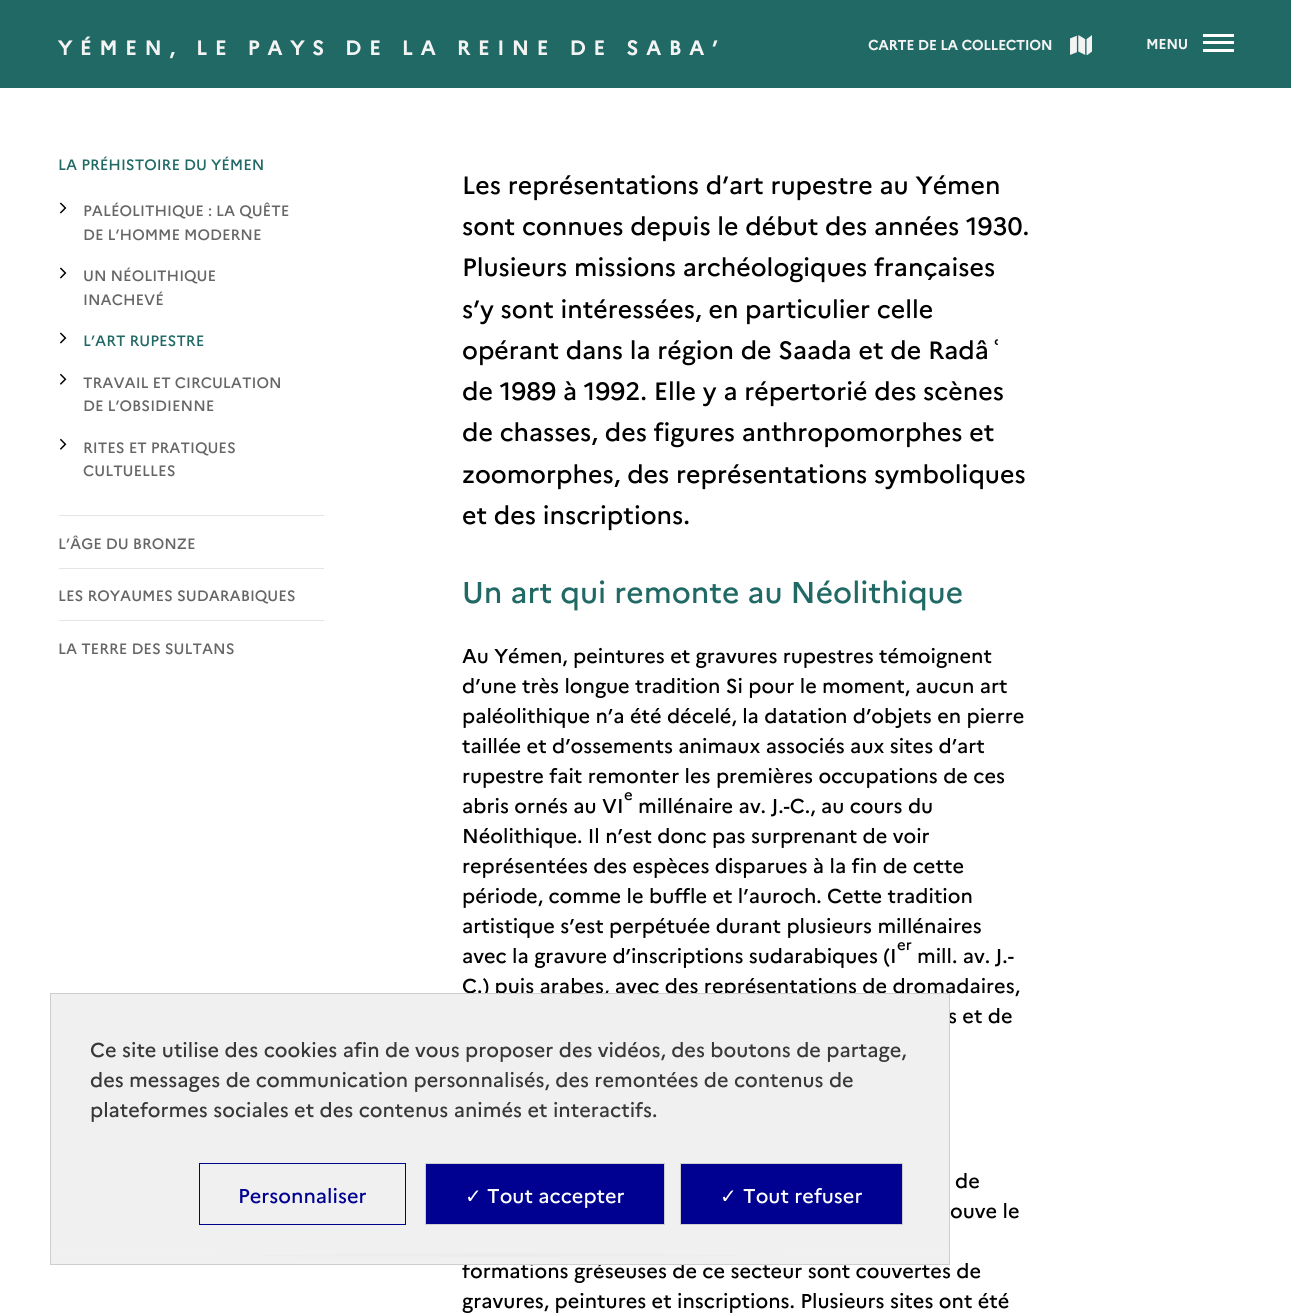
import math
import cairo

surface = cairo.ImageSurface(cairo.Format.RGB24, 1291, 1314)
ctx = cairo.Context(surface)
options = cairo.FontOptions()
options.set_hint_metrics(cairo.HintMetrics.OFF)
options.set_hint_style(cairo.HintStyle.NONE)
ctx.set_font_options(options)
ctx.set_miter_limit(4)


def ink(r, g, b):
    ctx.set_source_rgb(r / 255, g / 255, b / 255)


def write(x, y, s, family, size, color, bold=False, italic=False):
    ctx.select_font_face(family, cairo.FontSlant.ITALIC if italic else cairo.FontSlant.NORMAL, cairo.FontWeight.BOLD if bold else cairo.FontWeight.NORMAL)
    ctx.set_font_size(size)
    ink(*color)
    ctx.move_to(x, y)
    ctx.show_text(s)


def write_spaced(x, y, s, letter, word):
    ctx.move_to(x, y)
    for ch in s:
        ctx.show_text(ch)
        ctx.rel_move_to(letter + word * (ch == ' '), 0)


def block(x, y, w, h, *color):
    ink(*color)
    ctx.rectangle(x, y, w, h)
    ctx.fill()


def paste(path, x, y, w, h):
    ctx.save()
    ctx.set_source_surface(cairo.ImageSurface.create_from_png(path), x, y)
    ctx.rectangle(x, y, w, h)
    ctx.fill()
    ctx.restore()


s1 = dict(family="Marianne", size=13.75, color=(243, 243, 243), bold=True)
s2 = dict(family="Marianne Medium", size=15, color=(32, 105, 101))
s3 = dict(family="Marianne Medium", size=15, color=(102, 102, 102))
s4 = dict(family="Marianne Medium", size=25, color=(0, 0, 0))
s5 = dict(family="Marianne Medium", size=30, color=(32, 105, 101))
s6 = dict(family="Marianne Medium", size=20, color=(0, 0, 0))
s7 = dict(family="Marianne Medium", size=15, color=(0, 0, 0))
s8 = dict(family="Marianne Medium", size=20, color=(56, 56, 56))
s9 = dict(family="Marianne Medium", size=20, color=(0, 0, 145))
s10 = dict(family="DejaVu Sans", size=20, color=(255, 255, 255))
s11 = dict(family="Marianne Medium", size=20, color=(255, 255, 255))

ink(255, 255, 255)
ctx.paint()
block(0, 0, 1291, 88, 32, 105, 101)
ctx.select_font_face("Marianne", cairo.FontSlant.NORMAL, cairo.FontWeight.BOLD)
ctx.set_font_size(20)
ink(243, 243, 243)
write_spaced(58, 55, "YÉMEN, LE PAYS DE LA REINE DE SABA’", 8, 0)
write(868, 50, "CARTE DE LA COLLECTION", **s1)
paste("pic1.png", 1070, 35, 22, 20)
write(1146, 49, "MENU", **s1)
block(1203, 41, 31, 3, 255, 255, 255)
block(1203, 34, 31, 3, 255, 255, 255)
block(1203, 49, 31, 3, 255, 255, 255)
block(59, 515, 265, 1, 229, 229, 229)
write(58, 170, "LA PRÉHISTOIRE DU YÉMEN", **s2)
paste("pic2.png", 60, 202, 7, 12)
write(83, 216, "PALÉOLITHIQUE : LA QUÊTE", **s3)
write(83, 240, "DE L’HOMME MODERNE", **s3)
paste("pic2.png", 60, 267, 7, 12)
write(83, 281, "UN NÉOLITHIQUE", **s3)
write(83, 305, "INACHEVÉ", **s3)
paste("pic2.png", 60, 332, 7, 12)
write(83, 346, "L’ART RUPESTRE", **s2)
paste("pic3.png", 60, 373, 7, 12)
write(83, 388, "TRAVAIL ET CIRCULATION", **s3)
write(83, 411, "DE L’OBSIDIENNE", **s3)
paste("pic3.png", 60, 438, 7, 12)
write(83, 453, "RITES ET PRATIQUES", **s3)
write(83, 476, "CULTUELLES", **s3)
block(59, 568, 265, 1, 229, 229, 229)
write(58, 549, "L’ÂGE DU BRONZE", **s3)
block(59, 620, 265, 1, 229, 229, 229)
write(58, 601, "LES ROYAUMES SUDARABIQUES", **s3)
write(58, 654, "LA TERRE DES SULTANS", **s3)
write(462, 194, "Les représentations d’art rupestre au Yémen", **s4)
write(462, 235, "sont connues depuis le début des années 1930.", **s4)
write(462, 276, "Plusieurs missions archéologiques françaises", **s4)
write(462, 318, "s’y sont intéressées, en particulier celle", **s4)
write(462, 359, "opérant dans la région de Saada et de Radâʿ", **s4)
write(462, 400, "de 1989 à 1992. Elle y a répertorié des scènes", **s4)
write(462, 441, "de chasses, des figures anthropomorphes et", **s4)
write(462, 483, "zoomorphes, des représentations symboliques", **s4)
write(462, 524, "et des inscriptions.", **s4)
write(462, 603, "Un art qui remonte au Néolithique", **s5)
write(462, 663, "Au Yémen, peintures et gravures rupestres témoignent", **s6)
write(462, 693, "d’une très longue tradition Si pour le moment, aucun art", **s6)
write(462, 723, "paléolithique n’a été décelé, la datation d’objets en pierre", **s6)
write(462, 753, "taillée et d’ossements animaux associés aux sites d’art", **s6)
write(462, 783, "rupestre fait remonter les premières occupations de ces", **s6)
write(462, 813, "abris ornés au VI", **s6)
write(624, 800, "e", **s7)
write(638, 813, "millénaire av. J.-C., au cours du", **s6)
write(462, 843, "Néolithique. Il n’est donc pas surprenant de voir", **s6)
write(462, 873, "représentées des espèces disparues à la fin de cette", **s6)
write(462, 903, "période, comme le buffle et l’auroch. Cette tradition", **s6)
write(462, 933, "artistique s’est perpétuée durant plusieurs millénaires", **s6)
write(462, 963, "avec la gravure d’inscriptions sudarabiques (I", **s6)
write(897, 950, "er", **s7)
write(917, 963, "mill. av. J.-", **s6)
write(462, 993, "C.) puis arabes, avec des représentations de dromadaires,", **s6)
write(948, 1023, "s et de", **s6)
write(955, 1188, "de", **s6)
write(950, 1218, "ouve le", **s6)
write(462, 1278, "formations gréseuses de ce secteur sont couvertes de", **s6)
write(462, 1308, "gravures, peintures et inscriptions. Plusieurs sites ont été", **s6)
block(51, 1000, 898, 253, 240, 240, 240)
gradient = cairo.RadialGradient(0, 0, 0, 0, 0, 1)
gradient.set_matrix(cairo.Matrix(1 / 450, 0, 0, 1 / 13, -1 * 500 / 450, -1 * 1265 / 13))
gradient.add_color_stop_rgba(0, 0.537, 0.537, 0.537, 1)
gradient.add_color_stop_rgba(1, 0.941, 0.941, 0.941, 1)
ctx.set_source(gradient)
ctx.rectangle(51, 1253, 898, 4)
ctx.fill()
gradient = cairo.LinearGradient(500, 1243, 500, 1265)
gradient.add_color_stop_rgba(0, 0.941, 0.941, 0.941, 0)
gradient.add_color_stop_rgba(0.66, 0.941, 0.941, 0.941, 1)
ctx.set_source(gradient)
ctx.rectangle(51, 1253, 898, 11)
ctx.fill()
gradient = cairo.LinearGradient(500, 993, 500, 1015)
gradient.add_color_stop_rgba(0.33, 0.941, 0.941, 0.941, 1)
gradient.add_color_stop_rgba(1, 0.941, 0.941, 0.941, 0)
ctx.set_source(gradient)
ctx.rectangle(51, 994, 898, 6)
ctx.fill()
ctx.rectangle(50.5, 993.5, 899, 271)
ink(206, 206, 206)
ctx.set_line_width(1)
ctx.stroke()
write(90, 1057, "Ce site utilise des cookies afin de vous proposer des vidéos, des boutons de partage,", **s8)
write(90, 1087, "des messages de communication personnalisés, des remontées de contenus de", **s8)
write(90, 1117, "plateformes sociales et des contenus animés et interactifs.", **s8)
ctx.rectangle(199.5, 1163.5, 206, 61)
ink(0, 0, 145)
ctx.stroke()
write(238, 1203, "Personnaliser", **s9)
ctx.rectangle(425.5, 1163.5, 239, 61)
ctx.fill_preserve()
ink(206, 206, 206)
ctx.stroke()
write(465, 1203, "✓", **s10)
write(487, 1203, "Tout accepter", **s11)
ink(0, 0, 145)
ctx.rectangle(680.5, 1163.5, 222, 61)
ctx.fill_preserve()
ink(206, 206, 206)
ctx.stroke()
write(720, 1203, "✓", **s10)
write(743, 1203, "Tout refuser", **s11)
surface.write_to_png("screenshot.png")
